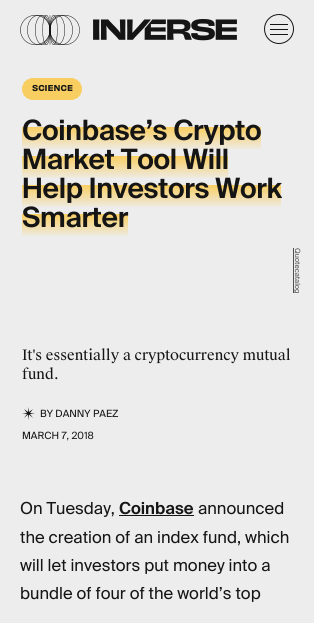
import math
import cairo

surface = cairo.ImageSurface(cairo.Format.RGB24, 314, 623)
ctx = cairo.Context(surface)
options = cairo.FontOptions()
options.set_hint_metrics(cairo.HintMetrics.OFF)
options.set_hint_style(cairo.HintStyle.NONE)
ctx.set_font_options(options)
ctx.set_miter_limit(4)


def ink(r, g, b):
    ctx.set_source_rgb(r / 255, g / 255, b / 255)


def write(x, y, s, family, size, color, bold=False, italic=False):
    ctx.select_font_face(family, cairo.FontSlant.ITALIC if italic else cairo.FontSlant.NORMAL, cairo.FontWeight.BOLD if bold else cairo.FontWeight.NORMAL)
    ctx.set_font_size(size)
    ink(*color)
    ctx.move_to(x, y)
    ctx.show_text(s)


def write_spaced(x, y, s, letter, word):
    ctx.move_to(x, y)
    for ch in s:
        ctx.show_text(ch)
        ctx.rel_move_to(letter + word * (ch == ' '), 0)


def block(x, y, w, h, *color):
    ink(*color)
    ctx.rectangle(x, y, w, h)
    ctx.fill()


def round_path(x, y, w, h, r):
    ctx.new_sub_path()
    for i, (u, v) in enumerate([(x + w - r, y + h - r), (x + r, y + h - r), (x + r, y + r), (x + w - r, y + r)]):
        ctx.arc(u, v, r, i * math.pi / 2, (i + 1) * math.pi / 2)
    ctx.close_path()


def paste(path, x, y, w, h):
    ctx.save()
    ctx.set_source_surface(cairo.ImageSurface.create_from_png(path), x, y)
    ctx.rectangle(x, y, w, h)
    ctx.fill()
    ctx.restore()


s1 = dict(family="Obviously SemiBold", size=8, color=(21, 21, 21))
s2 = dict(family="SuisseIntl", size=7.25, color=(79, 79, 79))
s3 = dict(family="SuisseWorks", size=14.4, color=(21, 21, 21))
s4 = dict(family="SuisseIntl", size=10, color=(21, 21, 21))
s5 = dict(family="SuisseIntl", size=16.6, color=(21, 21, 21))
s6 = dict(family="SuisseIntl SemiBold", size=16.6, color=(21, 21, 21))

ink(237, 237, 237)
ctx.paint()
paste("pic1.png", 20, 15, 60, 30)
paste("pic2.png", 93, 19, 144, 22)
ctx.arc(279, 29, 14.5, 0, 2 * math.pi)
ink(21, 21, 21)
ctx.set_line_width(1)
ctx.stroke()
block(270, 24, 18, 1, 21, 21, 21)
block(270, 34, 18, 1, 21, 21, 21)
block(270, 29, 18, 1, 21, 21, 21)
ink(249, 206, 96)
round_path(22.5, 78.5, 59, 21, 10.5)
ctx.fill_preserve()
ctx.stroke()
write(32, 91, "SCIENCE", **s1)
gradient = cairo.LinearGradient(142, 112, 142, 151)
gradient.add_color_stop_rgba(0, 0.929, 0.929, 0.929, 1)
gradient.add_color_stop_rgba(0.38, 0.929, 0.929, 0.929, 1)
gradient.add_color_stop_rgba(0.38, 0.976, 0.808, 0.376, 1)
gradient.add_color_stop_rgba(1, 0.929, 0.929, 0.929, 1)
ctx.set_source(gradient)
ctx.rectangle(22, 127, 239, 22)
ctx.fill()
ctx.select_font_face("SuisseIntl SemiBold")
ctx.set_font_size(28)
ink(21, 21, 21)
write_spaced(22, 140, "Coinbase’s Crypto", -0.25, 0)
gradient = cairo.LinearGradient(125, 141, 125, 180)
gradient.add_color_stop_rgba(0, 0.976, 0.808, 0.376, 0)
gradient.add_color_stop_rgba(0.38, 0.976, 0.808, 0.376, 0)
gradient.add_color_stop_rgba(0.38, 0.976, 0.808, 0.376, 1)
gradient.add_color_stop_rgba(1, 0.976, 0.808, 0.376, 0)
ctx.set_source(gradient)
ctx.rectangle(22, 156, 206, 22)
ctx.fill()
ink(21, 21, 21)
write_spaced(22, 169, "Market Tool Will", -0.25, 0)
gradient = cairo.LinearGradient(152, 170, 152, 209)
gradient.add_color_stop_rgba(0, 0.976, 0.808, 0.376, 0)
gradient.add_color_stop_rgba(0.38, 0.976, 0.808, 0.376, 0)
gradient.add_color_stop_rgba(0.38, 0.976, 0.808, 0.376, 1)
gradient.add_color_stop_rgba(1, 0.976, 0.808, 0.376, 0)
ctx.set_source(gradient)
ctx.rectangle(22, 185, 259, 22)
ctx.fill()
ink(21, 21, 21)
write_spaced(22, 198, "Help Investors Work", -0.25, 0)
gradient = cairo.LinearGradient(75, 199, 75, 238)
gradient.add_color_stop_rgba(0, 0.976, 0.808, 0.376, 0)
gradient.add_color_stop_rgba(0.38, 0.976, 0.808, 0.376, 0)
gradient.add_color_stop_rgba(0.38, 0.976, 0.808, 0.376, 1)
gradient.add_color_stop_rgba(1, 0.976, 0.808, 0.376, 0)
ctx.set_source(gradient)
ctx.rectangle(22, 214, 106, 22)
ctx.fill()
ink(21, 21, 21)
write_spaced(22, 227, "Smarter", -0.25, 0)
ctx.save()
ctx.translate(295, 248)
ctx.rotate(90 * math.pi / 180)
write(0, 0, "Quotecatalog", **s2)
ctx.restore()
block(293, 248, 1, 45, 79, 79, 79)
write(22, 360, "It's essentially a cryptocurrency mutual", **s3)
write(22, 379, "fund.", **s3)
ctx.new_path()
ctx.move_to(28.5, 407)
ctx.line_to(29, 412)
ctx.line_to(33, 409)
ctx.line_to(30, 413)
ctx.line_to(35, 413.5)
ctx.line_to(30, 414)
ctx.line_to(33, 418)
ctx.line_to(29, 414.5)
ctx.line_to(28.5, 420)
ctx.line_to(28, 414.5)
ctx.line_to(24, 418)
ctx.line_to(27, 414)
ctx.line_to(22, 413.5)
ctx.line_to(27, 413)
ctx.line_to(24, 409)
ctx.line_to(28, 412)
ctx.close_path()
ctx.fill()
write(40, 417, "BY DANNY PAEZ", **s4)
write(22, 439, "MARCH 7, 2018", **s4)
write(20, 514, "On Tuesday,", **s5)
write(119, 514, "Coinbase", **s6)
block(119, 515, 75, 1, 21, 21, 21)
write(198, 514, "announced", **s5)
write(20, 543, "the creation of an index fund, which", **s5)
write(20, 571, "will let investors put money into a", **s5)
write(20, 599, "bundle of four of the world’s top", **s5)
surface.write_to_png("screenshot.png")
